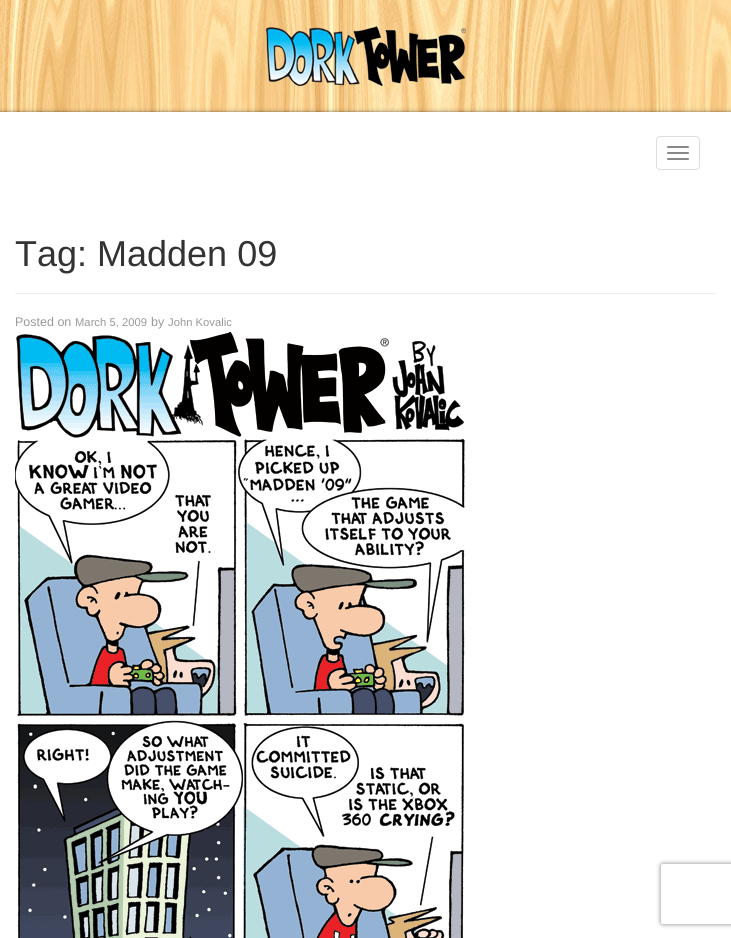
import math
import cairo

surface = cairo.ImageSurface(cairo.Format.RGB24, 731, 938)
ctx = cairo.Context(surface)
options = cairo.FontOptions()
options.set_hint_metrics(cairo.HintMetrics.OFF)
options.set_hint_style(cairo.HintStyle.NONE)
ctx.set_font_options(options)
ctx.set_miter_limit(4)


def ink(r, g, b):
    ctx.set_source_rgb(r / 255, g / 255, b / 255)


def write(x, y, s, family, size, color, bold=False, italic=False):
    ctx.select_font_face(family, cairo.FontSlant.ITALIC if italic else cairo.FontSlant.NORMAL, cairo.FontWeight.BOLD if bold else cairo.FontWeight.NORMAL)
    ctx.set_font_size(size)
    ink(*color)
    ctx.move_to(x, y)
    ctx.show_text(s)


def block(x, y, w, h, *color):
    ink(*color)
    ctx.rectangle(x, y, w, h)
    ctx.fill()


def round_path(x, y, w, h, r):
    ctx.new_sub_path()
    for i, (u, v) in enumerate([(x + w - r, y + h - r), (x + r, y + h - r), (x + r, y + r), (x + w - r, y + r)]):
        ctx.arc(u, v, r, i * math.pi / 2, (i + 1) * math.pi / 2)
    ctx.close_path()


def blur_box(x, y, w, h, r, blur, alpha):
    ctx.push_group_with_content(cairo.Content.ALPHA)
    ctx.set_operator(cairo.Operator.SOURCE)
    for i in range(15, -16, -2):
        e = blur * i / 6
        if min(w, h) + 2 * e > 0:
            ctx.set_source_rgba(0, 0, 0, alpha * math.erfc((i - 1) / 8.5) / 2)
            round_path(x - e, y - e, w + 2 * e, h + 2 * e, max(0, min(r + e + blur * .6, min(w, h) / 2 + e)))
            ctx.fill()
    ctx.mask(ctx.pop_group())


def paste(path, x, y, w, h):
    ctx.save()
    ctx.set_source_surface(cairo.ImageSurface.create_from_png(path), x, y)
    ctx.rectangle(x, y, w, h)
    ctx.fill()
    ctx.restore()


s1 = dict(family="Liberation Sans", size=36, color=(51, 51, 51))
s2 = dict(family="Liberation Sans", size=12.5, color=(153, 153, 153))
s3 = dict(family="Liberation Sans", size=11.25, color=(153, 153, 153))

ink(255, 255, 255)
ctx.paint()
paste("pic1.png", 0, 0, 731, 112)
paste("pic2.png", 266, 26, 200, 60)
ink(0, 0, 0)
blur_box(-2, 113, 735, 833, 0, 2.5, 0.75)
block(0, 112, 731, 826, 255, 255, 255)
round_path(656.5, 136.5, 43, 33, 3.5)
ink(221, 221, 221)
ctx.set_line_width(1)
ctx.stroke()
ink(136, 136, 136)
round_path(667, 146, 22, 2, 1)
ctx.fill()
round_path(667, 152, 22, 2, 1)
ctx.fill()
round_path(667, 158, 22, 2, 1)
ctx.fill()
block(15, 293, 701, 1, 238, 238, 238)
write(15, 266, "Tag: Madden 09", **s1)
write(15, 326, "Posted on", **s2)
write(75, 326, "March 5, 2009", **s3)
write(151, 326, "by", **s2)
write(168, 326, "John Kovalic", **s3)
paste("pic3.png", 15, 332, 450, 606)
ctx.save()
ctx.set_fill_rule(cairo.FillRule.EVEN_ODD)
ctx.new_path()
ctx.move_to(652, 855)
ctx.line_to(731, 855)
ctx.line_to(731, 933)
ctx.line_to(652, 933)
ctx.close_path()
ctx.move_to(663, 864)
ctx.line_to(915, 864)
ctx.curve_to(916, 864, 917, 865, 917, 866)
ctx.line_to(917, 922)
ctx.curve_to(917, 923, 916, 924, 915, 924)
ctx.line_to(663, 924)
ctx.curve_to(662, 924, 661, 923, 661, 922)
ctx.line_to(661, 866)
ctx.curve_to(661, 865, 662, 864, 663, 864)
ctx.close_path()
ctx.clip()
ink(128, 128, 128)
blur_box(661, 864, 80, 60, 2, 2.5, 1)
ctx.restore()
surface.write_to_png("screenshot.png")
